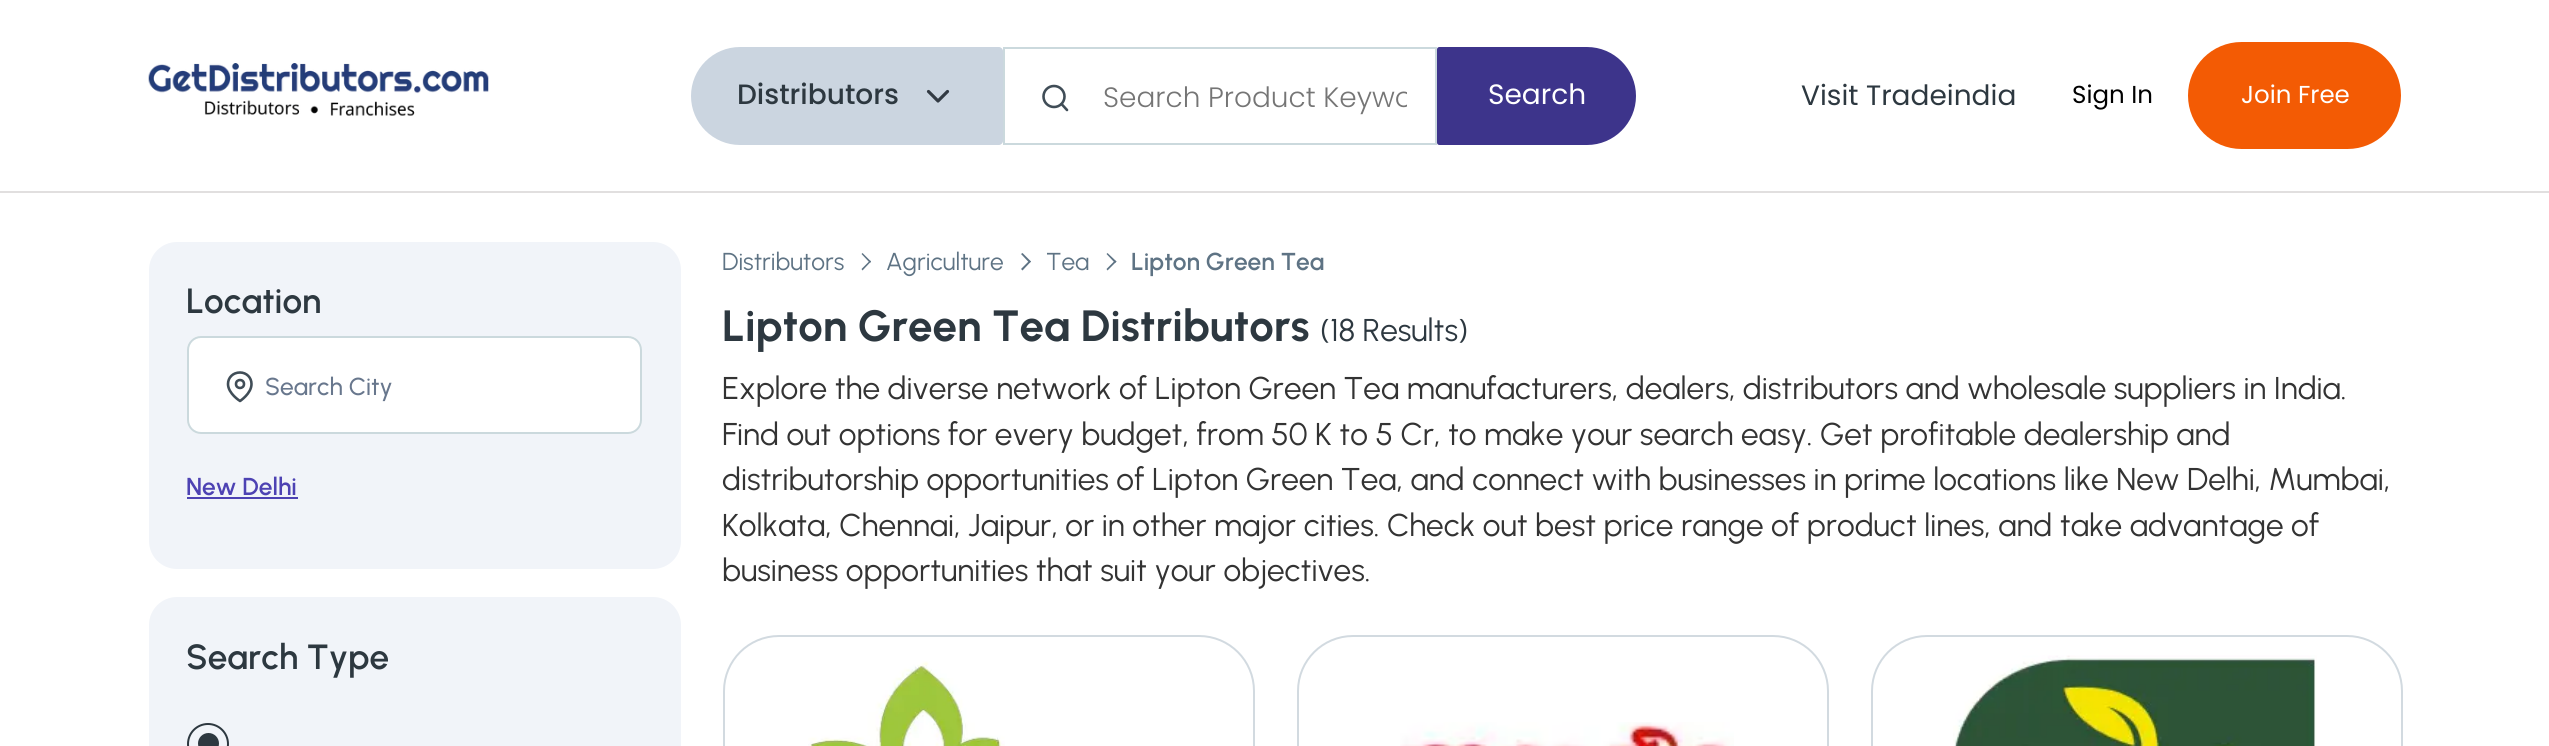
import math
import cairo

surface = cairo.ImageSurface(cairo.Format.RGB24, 2549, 746)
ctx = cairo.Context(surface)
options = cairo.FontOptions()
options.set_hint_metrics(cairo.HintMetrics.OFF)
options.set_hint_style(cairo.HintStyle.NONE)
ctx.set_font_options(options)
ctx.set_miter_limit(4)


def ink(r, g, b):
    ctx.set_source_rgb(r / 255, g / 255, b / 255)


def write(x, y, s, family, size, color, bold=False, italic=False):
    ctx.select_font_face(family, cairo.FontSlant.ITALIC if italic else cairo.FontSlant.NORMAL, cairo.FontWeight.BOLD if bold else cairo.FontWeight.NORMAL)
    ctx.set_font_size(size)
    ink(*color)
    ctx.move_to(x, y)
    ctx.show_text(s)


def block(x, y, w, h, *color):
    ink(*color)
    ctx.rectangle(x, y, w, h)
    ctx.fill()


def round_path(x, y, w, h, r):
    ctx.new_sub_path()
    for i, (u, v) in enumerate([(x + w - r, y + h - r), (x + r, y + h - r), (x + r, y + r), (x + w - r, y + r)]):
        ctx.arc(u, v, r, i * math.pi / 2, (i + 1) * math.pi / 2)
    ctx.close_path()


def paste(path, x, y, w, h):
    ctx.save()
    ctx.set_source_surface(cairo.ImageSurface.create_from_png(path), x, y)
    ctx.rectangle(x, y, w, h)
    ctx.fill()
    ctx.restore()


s1 = dict(family="Poppins Medium", size=28, color=(45, 56, 64))
s2 = dict(family="Poppins Light", size=28, color=(117, 117, 117))
s3 = dict(family="Poppins", size=28, color=(255, 255, 255))
s4 = dict(family="Poppins", size=28, color=(45, 56, 64))
s5 = dict(family="Poppins", size=24.5, color=(0, 0, 0))
s6 = dict(family="Poppins", size=24.5, color=(255, 255, 255))
s7 = dict(family="Urbanist SemiBold", size=35, color=(45, 56, 64))
s8 = dict(family="Urbanist Medium", size=24.5, color=(104, 119, 141))
s9 = dict(family="Urbanist SemiBold", size=24.5, color=(77, 66, 179))
s10 = dict(family="Urbanist", size=24.5, color=(94, 115, 132))
s11 = dict(family="Urbanist SemiBold", size=24.5, color=(94, 115, 132))
s12 = dict(family="Urbanist", size=43.75, color=(45, 56, 64), bold=True)
s13 = dict(family="Urbanist", size=31.5, color=(45, 56, 64))
s14 = dict(family="Urbanist", size=31.5, color=(51, 51, 51))

ink(255, 255, 255)
ctx.paint()
block(0, 191, 2549, 2, 225, 223, 223)
paste("pic1.png", 148, 63, 341, 53)
ink(203, 213, 224)
ctx.new_path()
ctx.move_to(740, 47)
ctx.line_to(999, 47)
ctx.curve_to(1001, 47, 1003, 49, 1003, 51)
ctx.line_to(1003, 141)
ctx.curve_to(1003, 143, 1001, 145, 999, 145)
ctx.line_to(740, 145)
ctx.curve_to(713, 145, 691, 123, 691, 96)
ctx.curve_to(691, 69, 713, 47, 740, 47)
ctx.close_path()
ctx.fill()
write(737, 104, "Distributors", **s1)
ctx.new_path()
ctx.move_to(928.5, 91.5)
ctx.line_to(938, 101)
ctx.line_to(947.5, 91.5)
ink(50, 58, 67)
ctx.set_line_width(3.2)
ctx.set_line_cap(cairo.LineCap.ROUND)
ctx.set_line_join(cairo.LineJoin.ROUND)
ctx.stroke()
ctx.rectangle(1004, 48, 432, 96)
ink(203, 217, 221)
ctx.set_line_width(2)
ctx.set_line_cap(cairo.LineCap.BUTT)
ctx.set_line_join(cairo.LineJoin.MITER)
ctx.stroke()
ctx.arc(1054, 96.5, 10.5, 0, 2 * math.pi)
ink(64, 77, 87)
ctx.set_line_width(2.6)
ctx.stroke()
ctx.new_path()
ctx.move_to(1067, 110)
ctx.line_to(1061.5, 104)
ctx.set_line_cap(cairo.LineCap.ROUND)
ctx.set_line_join(cairo.LineJoin.ROUND)
ctx.stroke()
ctx.save()
ctx.rectangle(1103, 75, 304, 44)
ctx.clip()
write(1103, 107, "Search Product Keywo", **s2)
ctx.restore()
ink(61, 52, 139)
ctx.new_path()
ctx.move_to(1439.5, 47)
ctx.line_to(1587, 47)
ctx.curve_to(1614, 47, 1636, 69, 1636, 96)
ctx.curve_to(1636, 123, 1614, 145, 1587, 145)
ctx.line_to(1439.5, 145)
ctx.curve_to(1438, 145, 1437, 144, 1437, 142.5)
ctx.line_to(1437, 49.5)
ctx.curve_to(1437, 48, 1438, 47, 1439.5, 47)
ctx.close_path()
ctx.fill()
write(1488, 104, "Search", **s3)
write(1801, 105, "Visit Tradeindia", **s4)
write(2072, 103, "Sign In", **s5)
ink(243, 91, 4)
round_path(2188, 42, 213, 107, 53.5)
ctx.fill()
write(2241, 103, "Join Free", **s6)
ink(241, 244, 249)
round_path(149, 242, 532, 327, 28)
ctx.fill()
write(186, 313, "Location", **s7)
ink(255, 255, 255)
round_path(187, 336, 455, 98, 14)
ctx.fill()
round_path(188, 337, 453, 96, 13)
ctx.set_source_rgba(0.314, 0.502, 0.557, 0.3)
ctx.set_line_width(2)
ctx.set_line_cap(cairo.LineCap.BUTT)
ctx.set_line_join(cairo.LineJoin.MITER)
ctx.stroke()
ctx.new_path()
ctx.move_to(251.5, 384)
ctx.curve_to(251.5, 393.5, 240, 401, 240, 401)
ctx.curve_to(240, 401, 228, 393.5, 228, 384)
ctx.curve_to(228, 377.5, 233, 372.5, 240, 372.5)
ctx.curve_to(246.5, 372.5, 251.5, 377.5, 251.5, 384)
ctx.close_path()
ink(64, 77, 87)
ctx.set_line_width(2.6)
ctx.set_line_cap(cairo.LineCap.ROUND)
ctx.set_line_join(cairo.LineJoin.ROUND)
ctx.stroke()
ctx.arc(240, 384, 4, 0, 2 * math.pi)
ctx.set_line_cap(cairo.LineCap.BUTT)
ctx.set_line_join(cairo.LineJoin.MITER)
ctx.stroke()
write(265, 395, "Search City", **s8)
write(186, 495, "New Delhi", **s9)
block(187, 497, 111, 2, 77, 66, 179)
ink(241, 244, 249)
round_path(149, 597, 532, 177, 28)
ctx.fill()
write(186, 669, "Search Type", **s7)
ctx.new_path()
ctx.arc(208, 744, 20, 0, 2 * math.pi)
ctx.set_line_width(2)
ctx.stroke()
ctx.arc(208.5, 743.5, 10.5, 0, 2 * math.pi)
ctx.fill()
write(722, 270, "Distributors", **s10)
ctx.new_path()
ctx.move_to(861.5, 254)
ctx.line_to(862.5, 253)
ctx.line_to(871, 261.5)
ctx.line_to(870, 263)
ctx.close_path()
ctx.fill()
ctx.new_path()
ctx.move_to(861.5, 269)
ctx.line_to(870, 260.5)
ctx.line_to(871, 261.5)
ctx.line_to(862.5, 270.5)
ctx.close_path()
ctx.fill()
write(886, 270, "Agriculture", **s10)
ctx.new_path()
ctx.move_to(1021, 254)
ctx.line_to(1022.5, 253)
ctx.line_to(1031, 261.5)
ctx.line_to(1029.5, 263)
ctx.close_path()
ctx.fill()
ctx.new_path()
ctx.move_to(1021, 269)
ctx.line_to(1029.5, 260.5)
ctx.line_to(1031, 261.5)
ctx.line_to(1022.5, 270.5)
ctx.close_path()
ctx.fill()
write(1046, 270, "Tea", **s10)
ctx.new_path()
ctx.move_to(1106.5, 254)
ctx.line_to(1107.5, 253)
ctx.line_to(1116.5, 261.5)
ctx.line_to(1115, 263)
ctx.close_path()
ctx.fill()
ctx.new_path()
ctx.move_to(1106.5, 269)
ctx.line_to(1115, 260.5)
ctx.line_to(1116.5, 261.5)
ctx.line_to(1107.5, 270.5)
ctx.close_path()
ctx.fill()
write(1131, 270, "Lipton Green Tea", **s11)
write(722, 341, "Lipton Green Tea Distributors", **s12)
write(1320, 341, "(18 Results)", **s13)
write(722, 399, "Explore the diverse network of Lipton Green Tea manufacturers, dealers, distributors and wholesale suppliers in India.", **s14)
write(722, 445, "Find out options for every budget, from 50 K to 5 Cr, to make your search easy. Get profitable dealership and", **s14)
write(722, 490, "distributorship opportunities of Lipton Green Tea, and connect with businesses in prime locations like New Delhi, Mumbai,", **s14)
write(722, 536, "Kolkata, Chennai, Jaipur, or in other major cities. Check out best price range of product lines, and take advantage of", **s14)
write(722, 581, "business opportunities that suit your objectives.", **s14)
round_path(724, 636, 530, 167, 55)
ink(210, 218, 224)
ctx.stroke()
paste("pic2.png", 808, 661, 197, 85)
round_path(1298, 636, 530, 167, 55)
ctx.stroke()
paste("pic3.png", 1400, 722, 334, 24)
round_path(1872, 636, 530, 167, 55)
ctx.stroke()
paste("pic4.png", 1953, 655, 364, 91)
surface.write_to_png("screenshot.png")
